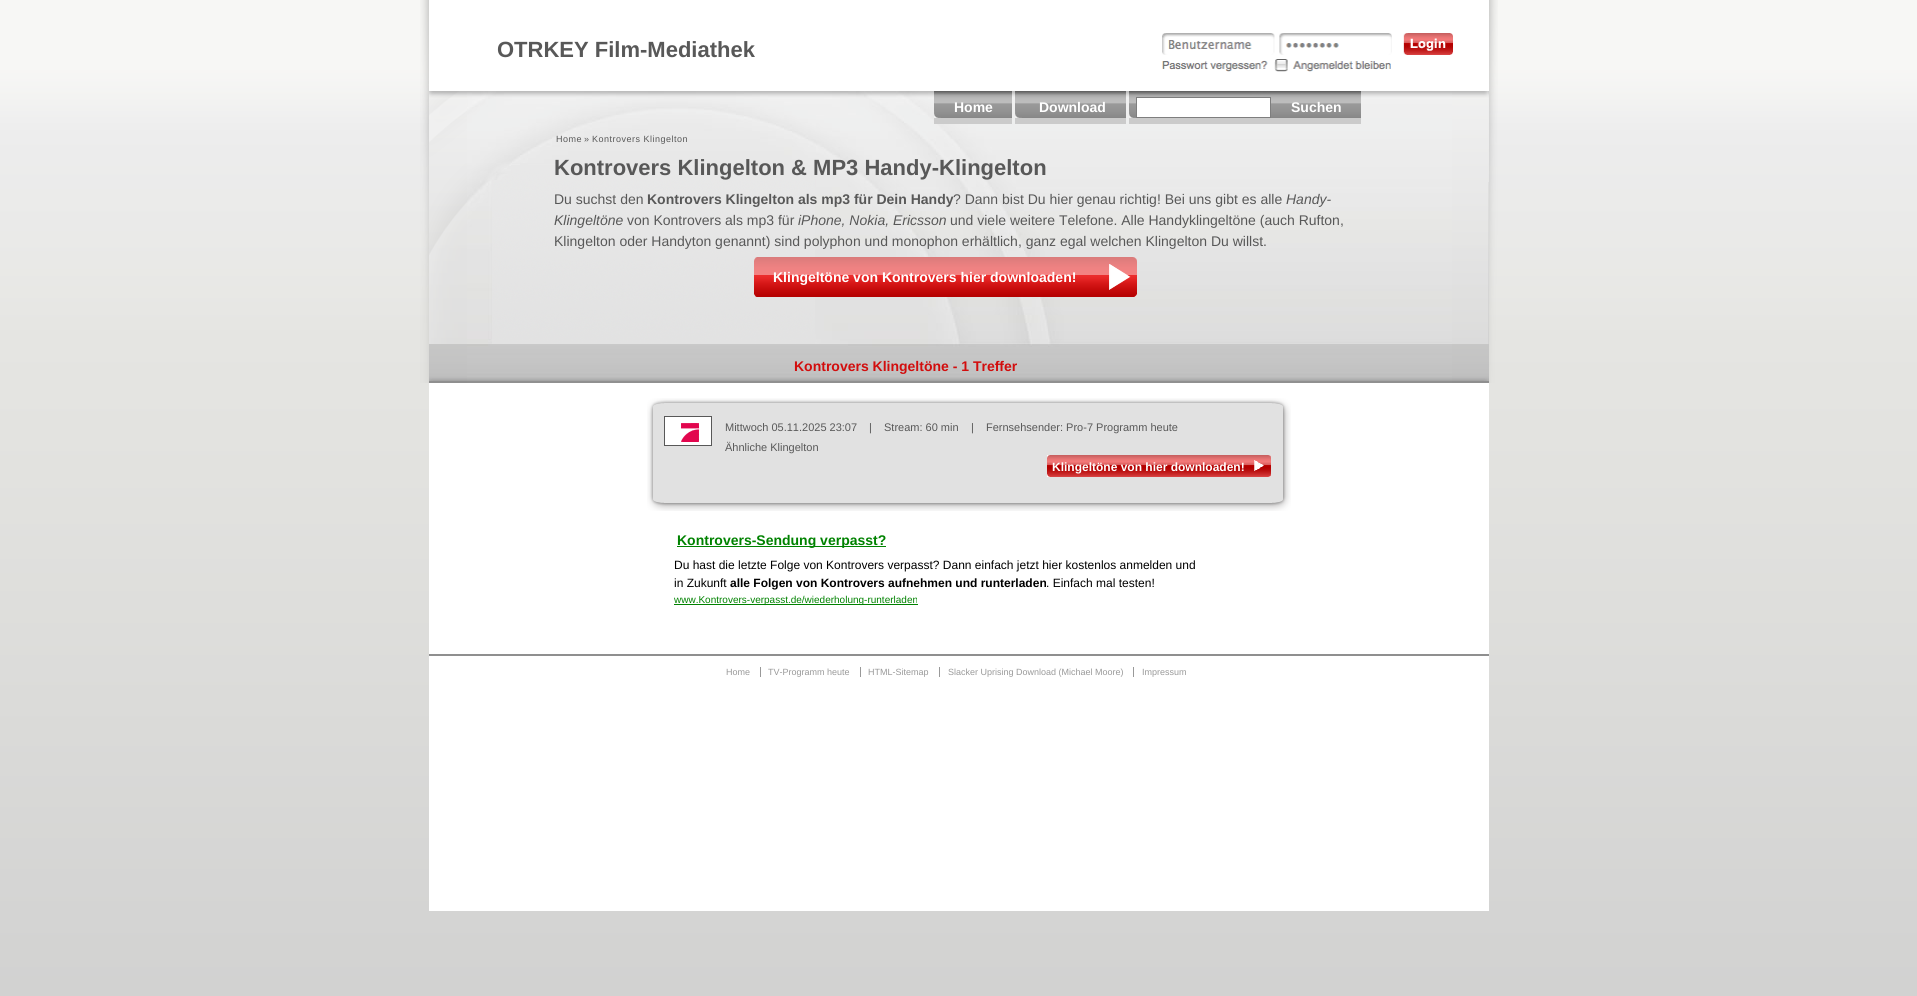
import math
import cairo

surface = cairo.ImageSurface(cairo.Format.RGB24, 1917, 996)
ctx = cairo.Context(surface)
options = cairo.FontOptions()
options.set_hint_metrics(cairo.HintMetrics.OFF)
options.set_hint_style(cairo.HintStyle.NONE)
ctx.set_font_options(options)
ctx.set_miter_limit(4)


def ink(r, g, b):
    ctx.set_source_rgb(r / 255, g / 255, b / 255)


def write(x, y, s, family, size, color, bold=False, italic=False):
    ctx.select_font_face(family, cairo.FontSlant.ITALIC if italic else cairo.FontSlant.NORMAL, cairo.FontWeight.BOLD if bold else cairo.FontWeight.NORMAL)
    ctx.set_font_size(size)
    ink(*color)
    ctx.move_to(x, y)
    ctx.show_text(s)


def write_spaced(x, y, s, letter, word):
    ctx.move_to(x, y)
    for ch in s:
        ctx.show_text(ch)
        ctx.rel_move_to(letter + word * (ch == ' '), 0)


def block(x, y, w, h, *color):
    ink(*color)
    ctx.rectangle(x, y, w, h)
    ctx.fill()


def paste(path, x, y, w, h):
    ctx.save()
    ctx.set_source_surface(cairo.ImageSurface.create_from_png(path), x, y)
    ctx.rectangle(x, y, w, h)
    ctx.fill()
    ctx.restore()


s1 = dict(family="Liberation Sans", size=22, color=(88, 88, 88), bold=True)
s2 = dict(family="Liberation Sans", size=14, color=(255, 255, 255), bold=True)
s3 = dict(family="Liberation Sans", size=9, color=(88, 88, 88))
s4 = dict(family="Liberation Sans", size=14, color=(88, 88, 88))
s5 = dict(family="Liberation Sans", size=14, color=(88, 88, 88), bold=True)
s6 = dict(family="Liberation Sans", size=14, color=(88, 88, 88), italic=True)
s7 = dict(family="Liberation Sans", size=14, color=(210, 13, 13), bold=True)
s8 = dict(family="Liberation Sans", size=11, color=(88, 88, 88))
s9 = dict(family="Liberation Sans", size=12, color=(255, 255, 255), bold=True)
s10 = dict(family="Liberation Sans", size=14, color=(0, 130, 0), bold=True)
s11 = dict(family="Liberation Sans", size=12, color=(0, 0, 0))
s12 = dict(family="Liberation Sans", size=12, color=(0, 0, 0), bold=True)
s13 = dict(family="Liberation Sans", size=10, color=(0, 130, 0))
s14 = dict(family="Liberation Sans", size=9, color=(153, 153, 153))

ink(255, 255, 255)
ctx.paint()
paste("pic1.png", 0, 0, 1917, 996)
paste("pic2.png", 420, 0, 1078, 383)
paste("pic3.png", 467, 91, 985, 292)
write(497, 57, "OTRKEY Film-Mediathek", **s1)
paste("pic4.png", 1162, 33, 291, 39)
block(934, 118, 78, 6, 203, 203, 203)
paste("pic5.png", 934, 91, 78, 27)
write(954, 112, "Home", **s2)
block(1015, 118, 111, 6, 203, 203, 203)
paste("pic6.png", 1015, 91, 111, 27)
write(1039, 112, "Download", **s2)
block(1129, 118, 232, 6, 203, 203, 203)
paste("pic7.png", 1129, 91, 232, 27)
ink(255, 255, 255)
ctx.rectangle(1136.5, 97.5, 134, 20)
ctx.fill_preserve()
ink(126, 126, 126)
ctx.set_line_width(1)
ctx.stroke()
write(1291, 112, "Suchen", **s2)
ctx.select_font_face("Liberation Sans")
ctx.set_font_size(9)
ink(88, 88, 88)
write_spaced(556, 142, "Home", 0.5, 0)
write(584, 142, "»", **s3)
write_spaced(592, 142, "Kontrovers Klingelton", 0.5, 0)
write(554, 175, "Kontrovers Klingelton & MP3 Handy-Klingelton", **s1)
write(554, 204, "Du suchst den", **s4)
write(647, 204, "Kontrovers Klingelton als mp3 für Dein Handy", **s5)
write(953, 204, "? Dann bist Du hier genau richtig! Bei uns gibt es alle", **s4)
write(1286, 204, "Handy-", **s6)
write(554, 225, "Klingeltöne", **s6)
write(627, 225, "von Kontrovers als mp3 für", **s4)
write(798, 225, "iPhone, Nokia, Ericsson", **s6)
write(950, 225, "und viele weitere Telefone. Alle Handyklingeltöne (auch Rufton,", **s4)
write(554, 246, "Klingelton oder Handyton genannt) sind polyphon und monophon erhältlich, ganz egal welchen Klingelton Du willst.", **s4)
paste("pic8.png", 754, 257, 3, 40)
paste("pic9.png", 757, 257, 340, 40)
paste("pic10.png", 1097, 257, 40, 40)
write(773, 282, "Klingeltöne von Kontrovers hier downloaden!", **s2)
write(794, 371, "Kontrovers Klingeltöne - 1 Treffer", **s7)
block(429, 383, 1060, 528, 255, 255, 255)
paste("pic11.png", 647, 398, 644, 113)
ctx.rectangle(664.5, 416.5, 47, 29)
ctx.fill_preserve()
ink(88, 88, 88)
ctx.stroke()
paste("pic12.png", 681, 423, 18, 19)
write(725, 431, "Mittwoch 05.11.2025 23:07", **s8)
write(869, 431, "|", **s8)
write(884, 431, "Stream: 60 min", **s8)
write(971, 431, "|", **s8)
write(986, 431, "Fernsehsender: Pro-7 Programm heute", **s8)
write(725, 451, "Ähnliche Klingelton", **s8)
paste("pic13.png", 1047, 455, 3, 22)
paste("pic14.png", 1050, 455, 197, 22)
paste("pic15.png", 1247, 455, 24, 22)
write(1052, 471, "Klingeltöne von hier downloaden!", **s9)
block(677, 546, 209, 1, 0, 130, 0)
write(677, 545, "Kontrovers-Sendung verpasst?", **s10)
write(674, 569, "Du hast die letzte Folge von Kontrovers verpasst? Dann einfach jetzt hier kostenlos anmelden und", **s11)
write(674, 587, "in Zukunft", **s11)
write(730, 587, "alle Folgen von Kontrovers aufnehmen und runterladen", **s12)
write(1046, 587, ". Einfach mal testen!", **s11)
block(674, 604, 244, 1, 0, 130, 0)
write(674, 603, "www.Kontrovers-verpasst.de/wiederholung-runterladen", **s13)
block(429, 654, 1060, 2, 143, 143, 143)
write(726, 675, "Home", **s14)
block(760, 667, 1, 10, 153, 153, 153)
write(768, 675, "TV-Programm heute", **s14)
block(860, 667, 1, 10, 153, 153, 153)
write(868, 675, "HTML-Sitemap", **s14)
block(939, 667, 1, 10, 153, 153, 153)
write(948, 675, "Slacker Uprising Download (Michael Moore)", **s14)
block(1133, 667, 1, 10, 153, 153, 153)
write(1142, 675, "Impressum", **s14)
surface.write_to_png("screenshot.png")
